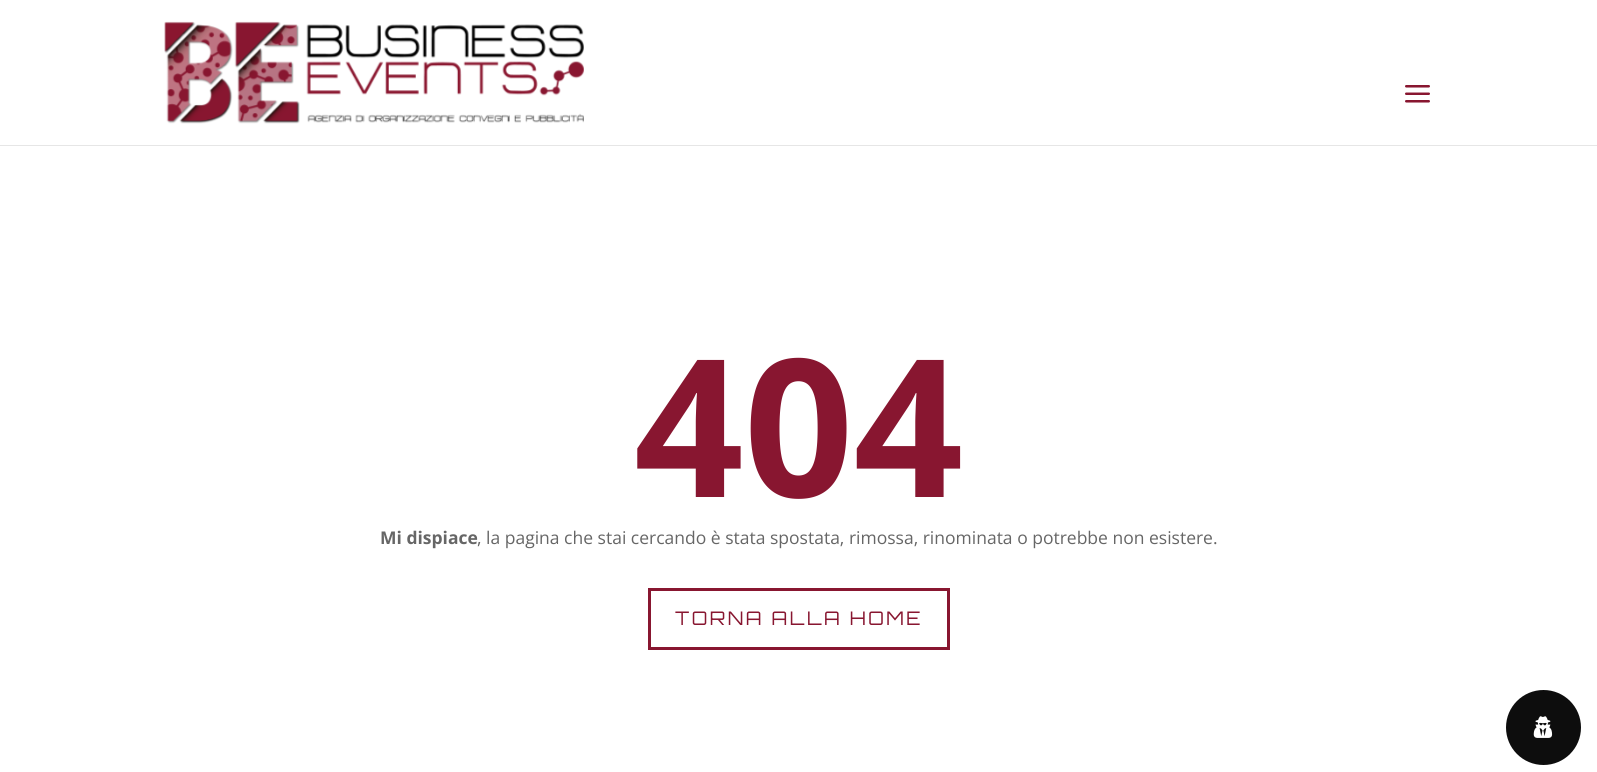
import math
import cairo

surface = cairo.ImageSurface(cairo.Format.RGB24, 1597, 772)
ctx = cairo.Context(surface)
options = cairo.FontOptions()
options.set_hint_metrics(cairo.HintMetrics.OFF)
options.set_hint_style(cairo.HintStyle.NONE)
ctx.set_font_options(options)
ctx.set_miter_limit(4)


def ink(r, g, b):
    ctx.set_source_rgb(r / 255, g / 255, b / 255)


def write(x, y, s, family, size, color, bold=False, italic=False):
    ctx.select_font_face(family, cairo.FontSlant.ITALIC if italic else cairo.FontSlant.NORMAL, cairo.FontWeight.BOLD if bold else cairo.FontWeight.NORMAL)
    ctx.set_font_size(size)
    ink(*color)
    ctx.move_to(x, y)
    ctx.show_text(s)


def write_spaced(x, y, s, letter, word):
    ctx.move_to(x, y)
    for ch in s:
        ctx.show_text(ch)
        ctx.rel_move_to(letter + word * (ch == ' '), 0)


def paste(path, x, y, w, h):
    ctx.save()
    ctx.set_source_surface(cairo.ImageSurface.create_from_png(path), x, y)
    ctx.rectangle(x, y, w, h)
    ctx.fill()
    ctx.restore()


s1 = dict(family="Open Sans", size=192, color=(136, 22, 48), bold=True)
s2 = dict(family="Open Sans", size=17.5, color=(102, 102, 102), bold=True)
s3 = dict(family="Open Sans", size=17.5, color=(102, 102, 102))

ink(255, 255, 255)
ctx.paint()
ink(230, 230, 230)
ctx.new_path()
ctx.move_to(0, 145)
ctx.line_to(0, 146)
ctx.line_to(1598, 146)
ctx.line_to(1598, 1)
ctx.line_to(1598, 145)
ctx.close_path()
ctx.fill()
paste("pic1.png", 164, 21, 420, 103)
paste("pic2.png", 1405, 85, 25, 18)
write(634, 497, "404", **s1)
write(380, 544, "Mi dispiace", **s2)
write(477, 544, ", la pagina che stai cercando è stata spostata, rimossa, rinominata o potrebbe non esistere.", **s3)
ctx.rectangle(649.5, 589.5, 299, 59)
ink(136, 22, 48)
ctx.set_line_width(3)
ctx.stroke()
ctx.select_font_face("Orbitron")
ctx.set_font_size(18.75)
write_spaced(675, 625, "TORNA ALLA HOME", 2.5, 0)
ink(13, 13, 13)
ctx.new_path()
ctx.arc(1543.5, 727.5, 37.5, 0, 2 * math.pi)
ctx.fill()
paste("pic3.png", 1533, 716, 20, 22)
surface.write_to_png("screenshot.png")
